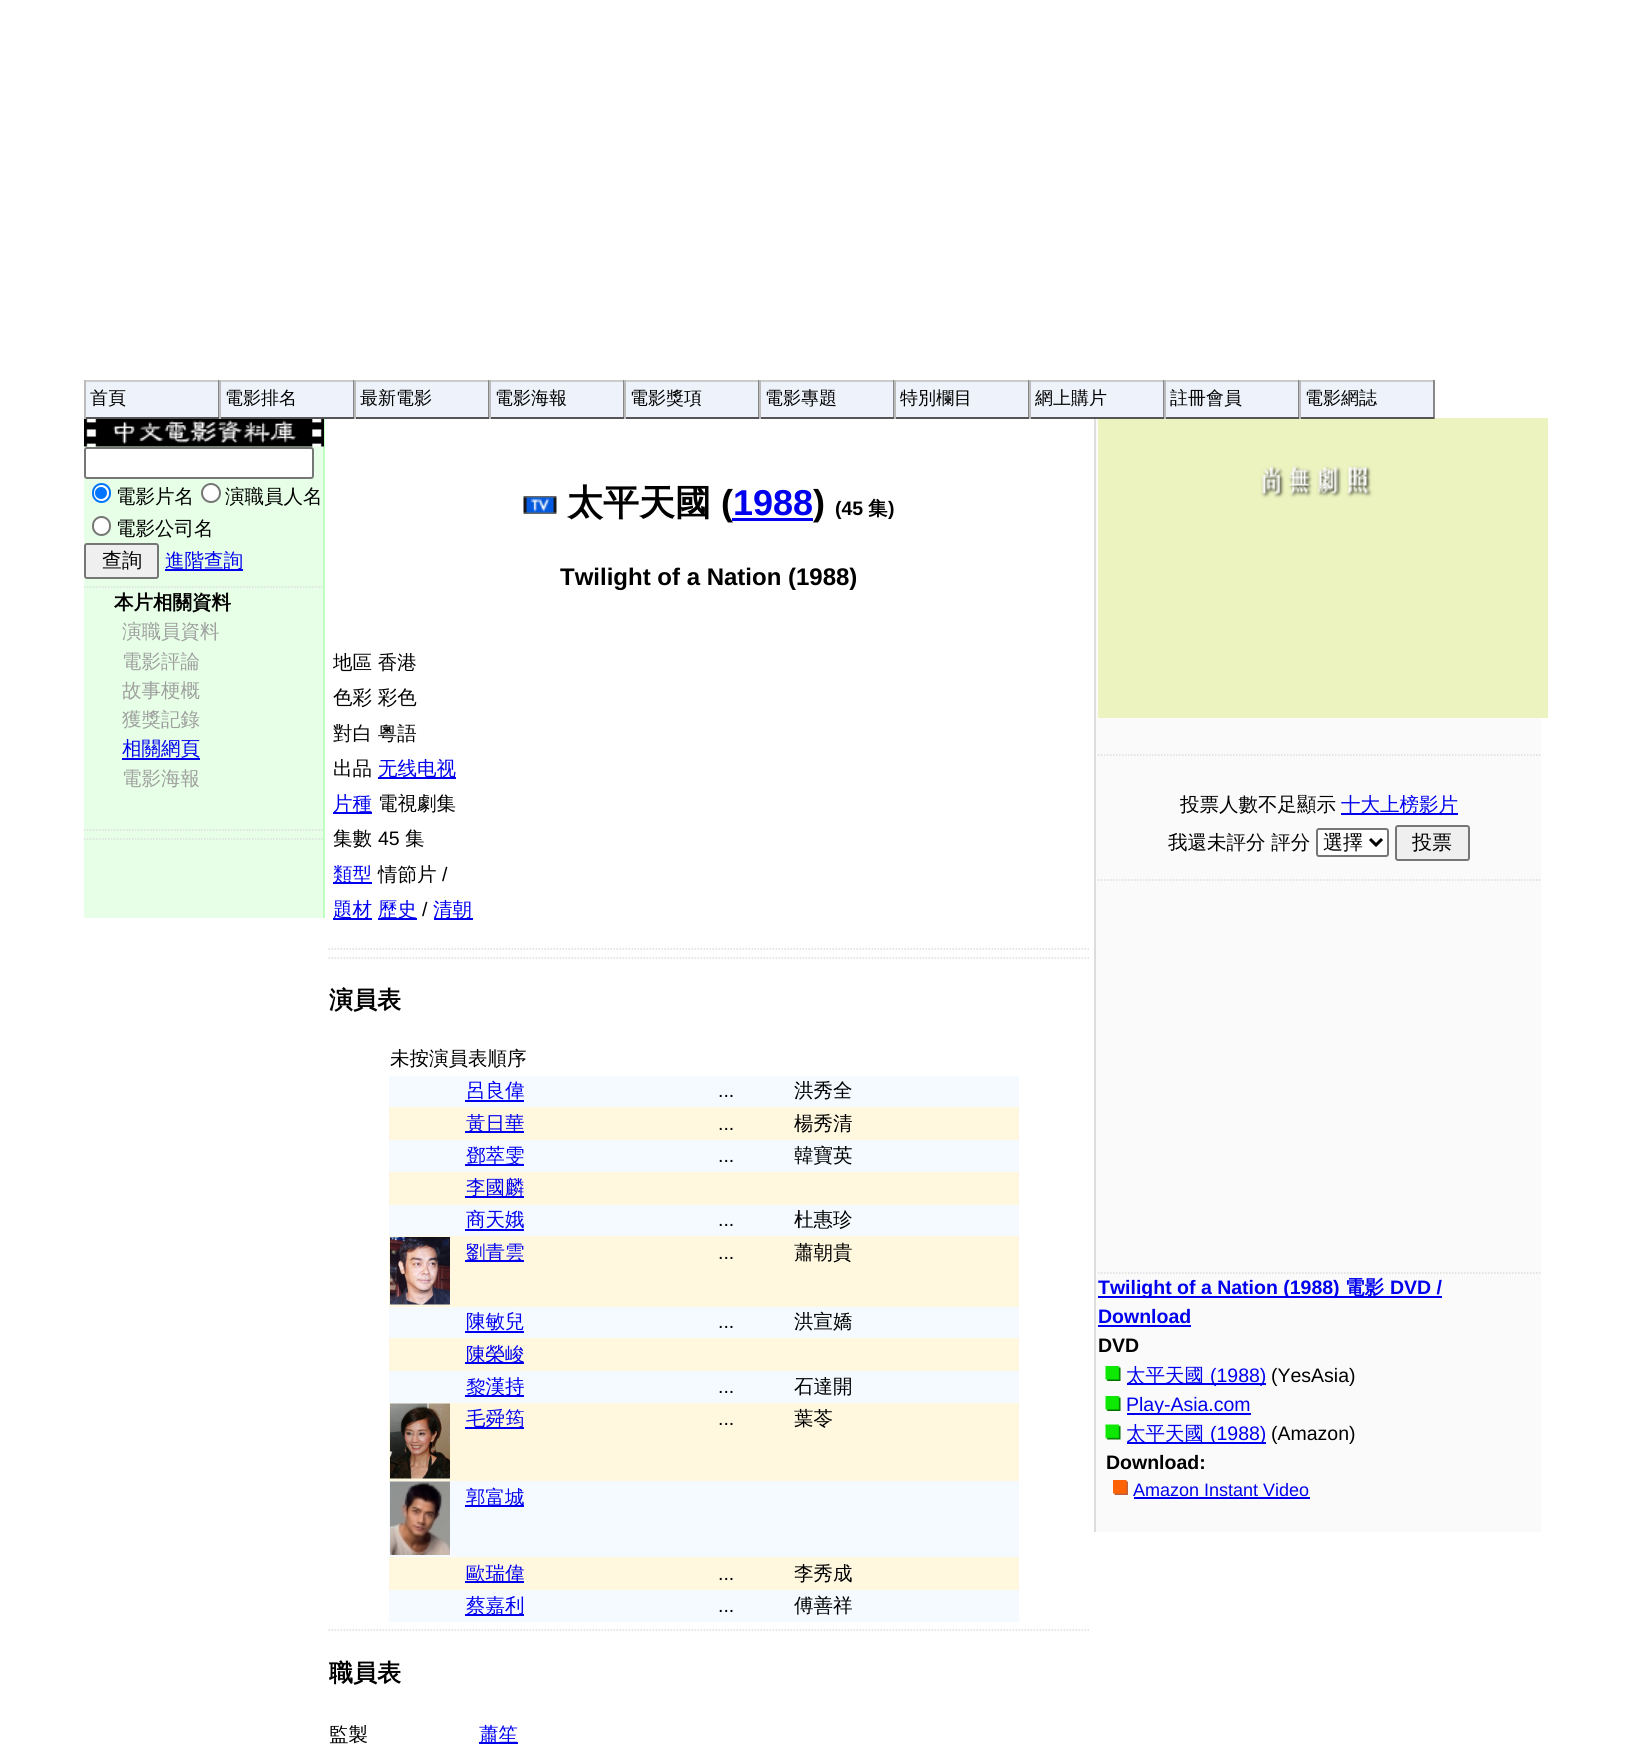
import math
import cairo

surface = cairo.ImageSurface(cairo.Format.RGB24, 1638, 1762)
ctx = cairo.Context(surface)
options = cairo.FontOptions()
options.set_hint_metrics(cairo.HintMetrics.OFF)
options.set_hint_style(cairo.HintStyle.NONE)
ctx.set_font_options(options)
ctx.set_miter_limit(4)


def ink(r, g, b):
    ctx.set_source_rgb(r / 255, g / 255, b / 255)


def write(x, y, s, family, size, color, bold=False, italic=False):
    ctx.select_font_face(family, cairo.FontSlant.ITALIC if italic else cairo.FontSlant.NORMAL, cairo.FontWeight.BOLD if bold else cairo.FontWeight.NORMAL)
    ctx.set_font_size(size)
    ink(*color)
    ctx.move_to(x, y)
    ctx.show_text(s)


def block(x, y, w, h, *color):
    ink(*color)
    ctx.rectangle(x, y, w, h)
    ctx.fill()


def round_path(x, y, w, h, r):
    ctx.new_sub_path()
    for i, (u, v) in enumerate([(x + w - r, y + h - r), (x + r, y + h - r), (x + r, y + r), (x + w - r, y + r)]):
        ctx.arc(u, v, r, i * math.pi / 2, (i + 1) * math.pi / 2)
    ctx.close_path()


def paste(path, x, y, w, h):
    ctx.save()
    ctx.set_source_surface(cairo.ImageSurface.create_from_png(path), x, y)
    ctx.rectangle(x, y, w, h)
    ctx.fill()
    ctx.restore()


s1 = dict(family="WenQuanYi Zen Hei Medium", size=18, color=(0, 0, 0))
s2 = dict(family="WenQuanYi Zen Hei Medium", size=19.5, color=(0, 0, 0))
s3 = dict(family="WenQuanYi Zen Hei Medium", size=20, color=(0, 0, 0))
s4 = dict(family="WenQuanYi Zen Hei Medium", size=19.5, color=(0, 0, 238))
s5 = dict(family="WenQuanYi Zen Hei", size=19.5, color=(0, 0, 0), bold=True)
s6 = dict(family="WenQuanYi Zen Hei Medium", size=19.5, color=(159, 159, 159))
s7 = dict(family="WenQuanYi Zen Hei", size=36, color=(0, 0, 0), bold=True)
s8 = dict(family="Liberation Sans", size=36, color=(0, 0, 0), bold=True)
s9 = dict(family="Liberation Sans", size=36, color=(0, 0, 238), bold=True)
s10 = dict(family="Liberation Sans", size=19.5, color=(0, 0, 0), bold=True)
s11 = dict(family="Liberation Sans", size=24, color=(0, 0, 0), bold=True)
s12 = dict(family="Liberation Sans", size=19.5, color=(0, 0, 0))
s13 = dict(family="WenQuanYi Zen Hei", size=24, color=(0, 0, 0), bold=True)
s14 = dict(family="Liberation Sans", size=19.5, color=(0, 0, 238), bold=True)
s15 = dict(family="WenQuanYi Zen Hei", size=19.5, color=(0, 0, 238), bold=True)
s16 = dict(family="Liberation Sans", size=19.5, color=(0, 0, 238))
s17 = dict(family="Liberation Sans", size=18, color=(0, 0, 238))

ink(255, 255, 255)
ctx.paint()
block(86, 382, 132, 35, 238, 242, 250)
block(84, 380, 1350, 2, 204, 204, 204)
block(218, 380, 1, 39, 136, 136, 136)
block(84, 417, 135, 2, 85, 85, 85)
block(84, 380, 2, 39, 187, 187, 187)
write(90, 404, "首頁", **s1)
block(221, 382, 132, 35, 238, 242, 250)
block(353, 380, 1, 39, 136, 136, 136)
block(219, 417, 135, 2, 85, 85, 85)
block(219, 380, 2, 39, 187, 187, 187)
write(225, 404, "電影排名", **s1)
block(356, 382, 132, 35, 238, 242, 250)
block(488, 380, 1, 39, 136, 136, 136)
block(354, 417, 135, 2, 85, 85, 85)
block(354, 380, 2, 39, 187, 187, 187)
write(360, 404, "最新電影", **s1)
block(491, 382, 132, 35, 238, 242, 250)
block(623, 380, 1, 39, 136, 136, 136)
block(489, 417, 135, 2, 85, 85, 85)
block(489, 380, 2, 39, 187, 187, 187)
write(495, 404, "電影海報", **s1)
block(626, 382, 132, 35, 238, 242, 250)
block(758, 380, 1, 39, 136, 136, 136)
block(624, 417, 135, 2, 85, 85, 85)
block(624, 380, 2, 39, 187, 187, 187)
write(630, 404, "電影獎項", **s1)
block(761, 382, 132, 35, 238, 242, 250)
block(893, 380, 1, 39, 136, 136, 136)
block(759, 417, 135, 2, 85, 85, 85)
block(759, 380, 2, 39, 187, 187, 187)
write(765, 404, "電影專題", **s1)
block(896, 382, 132, 35, 238, 242, 250)
block(1028, 380, 1, 39, 136, 136, 136)
block(894, 417, 135, 2, 85, 85, 85)
block(894, 380, 2, 39, 187, 187, 187)
write(900, 404, "特別欄目", **s1)
block(1031, 382, 132, 35, 238, 242, 250)
block(1096, 419, 445, 1113, 250, 250, 250)
paste("pic6.png", 1098, 418, 450, 300)
block(1163, 380, 1, 39, 136, 136, 136)
block(1029, 417, 135, 2, 85, 85, 85)
block(1029, 380, 2, 39, 187, 187, 187)
write(1035, 404, "網上購片", **s1)
block(1166, 382, 132, 35, 238, 242, 250)
block(1298, 380, 1, 39, 136, 136, 136)
block(1164, 417, 135, 2, 85, 85, 85)
block(1164, 380, 2, 39, 187, 187, 187)
write(1170, 404, "註冊會員", **s1)
block(1301, 382, 132, 35, 238, 242, 250)
block(1433, 380, 2, 39, 136, 136, 136)
block(1299, 417, 135, 2, 85, 85, 85)
block(1299, 380, 2, 39, 187, 187, 187)
write(1305, 404, "電影網誌", **s1)
block(84, 446, 239, 472, 230, 255, 230)
block(323, 419, 2, 499, 191, 255, 191)
paste("pic1.png", 84, 419, 240, 28)
ink(255, 255, 255)
round_path(85, 448, 228, 30, 2)
ctx.fill_preserve()
ink(118, 118, 118)
ctx.stroke()
ink(255, 255, 255)
round_path(93, 484, 17, 18, 8.5)
ctx.fill_preserve()
ink(0, 117, 255)
ctx.stroke()
ctx.arc(101, 493, 6, 0, 2 * math.pi)
ctx.fill()
write(116, 503, "電影片名", **s2)
ink(255, 255, 255)
ctx.new_path()
ctx.arc(211, 493, 9, 0, 2 * math.pi)
ctx.fill_preserve()
ink(118, 118, 118)
ctx.stroke()
write(225, 503, "演職員人名", **s2)
ink(255, 255, 255)
round_path(93, 517, 17, 18, 8.5)
ctx.fill_preserve()
ink(118, 118, 118)
ctx.stroke()
write(116, 535, "電影公司名", **s2)
ink(239, 239, 239)
round_path(85, 544, 73, 34, 2)
ctx.fill_preserve()
ink(118, 118, 118)
ctx.stroke()
write(102, 567, "查詢", **s3)
block(165, 569, 78, 2, 0, 0, 238)
write(165, 567, "進階查詢", **s4)
ctx.new_path()
ctx.move_to(84, 587)
ctx.line_to(322.5, 587)
ink(221, 221, 221)
ctx.set_line_width(1.5)
ctx.set_dash([1.5, 1.5])
ctx.stroke()
write(114, 609, "本片相關資料", **s5)
write(122, 638, "演職員資料", **s6)
write(122, 668, "電影評論", **s6)
write(122, 697, "故事梗概", **s6)
write(122, 726, "獲獎記錄", **s6)
write(122, 755, "相關網頁", **s4)
block(122, 758, 78, 2, 0, 0, 238)
write(122, 785, "電影海報", **s6)
ctx.new_path()
ctx.move_to(84, 830)
ctx.line_to(322.5, 830)
ink(221, 221, 221)
ctx.stroke()
ctx.new_path()
ctx.move_to(84, 839)
ctx.line_to(322.5, 839)
ctx.stroke()
paste("pic2.png", 523, 496, 34, 18)
write(567, 515, "太平天國", **s7)
write(721, 515, "(", **s8)
write(733, 515, "1988", **s9)
block(732, 518, 81, 3, 0, 0, 238)
write(813, 515, ")", **s8)
write(835, 515, "(45", **s10)
write(868, 515, "集", **s5)
write(888, 515, ")", **s10)
write(560, 585, "Twilight of a Nation (1988)", **s11)
write(333, 669, "地區 香港", **s2)
write(333, 704, "色彩 彩色", **s2)
write(333, 740, "對白 粵語", **s2)
write(333, 775, "出品", **s2)
block(378, 777, 78, 2, 0, 0, 238)
write(378, 775, "无线电视", **s4)
block(333, 812, 39, 2, 0, 0, 238)
write(333, 810, "片種", **s4)
write(378, 810, "電視劇集", **s2)
write(333, 845, "集數", **s2)
write(378, 845, "45", **s12)
write(405, 845, "集", **s2)
block(333, 882, 39, 2, 0, 0, 238)
write(333, 881, "類型", **s4)
write(378, 881, "情節片", **s2)
write(442, 881, "/", **s12)
block(333, 918, 39, 2, 0, 0, 238)
write(333, 916, "題材", **s4)
block(378, 918, 39, 2, 0, 0, 238)
write(378, 916, "歷史", **s4)
write(422, 916, "/", **s12)
block(434, 918, 39, 2, 0, 0, 238)
write(433, 916, "清朝", **s4)
ctx.new_path()
ctx.move_to(328.5, 949)
ctx.line_to(1089, 949)
ink(221, 221, 221)
ctx.stroke()
ctx.new_path()
ctx.move_to(328.5, 958)
ctx.line_to(1089, 958)
ctx.stroke()
write(329, 1008, "演員表", **s13)
write(390, 1065, "未按演員表順序", **s2)
block(389, 1076, 630, 31, 244, 250, 255)
write(466, 1097, "呂良偉", **s4)
block(465, 1100, 59, 2, 0, 0, 238)
write(718, 1097, "...", **s12)
write(794, 1097, "洪秀全", **s2)
block(389, 1107, 630, 33, 255, 248, 223)
block(465, 1131, 59, 2, 0, 0, 238)
write(466, 1130, "黃日華", **s4)
write(718, 1130, "...", **s12)
write(794, 1130, "楊秀清", **s2)
block(389, 1140, 630, 32, 244, 250, 255)
block(465, 1164, 59, 2, 0, 0, 238)
write(466, 1162, "鄧萃雯", **s4)
write(718, 1162, "...", **s12)
write(794, 1162, "韓寶英", **s2)
block(389, 1172, 630, 33, 255, 248, 223)
block(465, 1196, 59, 2, 0, 0, 238)
write(466, 1194, "李國麟", **s4)
block(389, 1205, 630, 31, 244, 250, 255)
write(466, 1226, "商天娥", **s4)
block(465, 1229, 59, 2, 0, 0, 238)
write(718, 1226, "...", **s12)
write(794, 1226, "杜惠珍", **s2)
block(389, 1236, 630, 71, 255, 248, 223)
paste("pic3.png", 390, 1237, 60, 68)
block(465, 1260, 59, 2, 0, 0, 238)
write(466, 1259, "劉青雲", **s4)
write(718, 1259, "...", **s12)
write(794, 1259, "蕭朝貴", **s2)
block(389, 1307, 630, 31, 244, 250, 255)
write(466, 1328, "陳敏兒", **s4)
block(465, 1331, 59, 2, 0, 0, 238)
write(718, 1328, "...", **s12)
write(794, 1328, "洪宣嬌", **s2)
block(389, 1338, 630, 33, 255, 248, 223)
block(465, 1362, 59, 2, 0, 0, 238)
write(466, 1361, "陳榮峻", **s4)
block(389, 1371, 630, 32, 244, 250, 255)
block(465, 1395, 59, 2, 0, 0, 238)
write(466, 1393, "黎漢持", **s4)
write(718, 1393, "...", **s12)
write(794, 1393, "石達開", **s2)
block(389, 1403, 630, 78, 255, 248, 223)
paste("pic4.png", 390, 1403, 60, 76)
block(465, 1427, 59, 2, 0, 0, 238)
write(466, 1425, "毛舜筠", **s4)
write(718, 1425, "...", **s12)
write(794, 1425, "葉苓", **s2)
block(389, 1481, 630, 76, 244, 250, 255)
paste("pic5.png", 390, 1481, 60, 74)
block(465, 1505, 59, 2, 0, 0, 238)
write(466, 1504, "郭富城", **s4)
block(389, 1557, 630, 33, 255, 248, 223)
block(465, 1581, 59, 2, 0, 0, 238)
write(466, 1580, "歐瑞偉", **s4)
write(718, 1580, "...", **s12)
write(794, 1580, "李秀成", **s2)
block(389, 1590, 630, 32, 244, 250, 255)
block(465, 1614, 59, 2, 0, 0, 238)
write(466, 1612, "蔡嘉利", **s4)
write(718, 1612, "...", **s12)
write(794, 1612, "傅善祥", **s2)
ctx.new_path()
ctx.move_to(328.5, 1630)
ctx.line_to(1089, 1630)
ink(221, 221, 221)
ctx.stroke()
write(329, 1681, "職員表", **s13)
write(329, 1741, "監製", **s2)
block(479, 1742, 39, 2, 0, 0, 238)
write(479, 1741, "蕭笙", **s4)
block(1094, 419, 2, 1113, 221, 221, 221)
ctx.new_path()
ctx.move_to(1098, 755)
ctx.line_to(1540.5, 755)
ctx.stroke()
write(1180, 811, "投票人數不足顯示", **s2)
block(1341, 813, 117, 2, 0, 0, 238)
write(1341, 811, "十大上榜影片", **s4)
write(1168, 849, "我還未評分 評分", **s2)
ink(255, 255, 255)
round_path(1317, 829, 71, 27, 2)
ctx.fill_preserve()
ink(118, 118, 118)
ctx.set_line_width(2)
ctx.set_dash([])
ctx.stroke()
ctx.new_path()
ctx.move_to(1370, 839)
ctx.line_to(1376, 845)
ctx.line_to(1382, 839)
ink(0, 0, 0)
ctx.set_line_width(3)
ctx.stroke()
write(1323, 849, "選擇", **s3)
ink(239, 239, 239)
round_path(1396, 826, 73, 34, 2)
ctx.fill_preserve()
ink(118, 118, 118)
ctx.set_line_width(2)
ctx.stroke()
write(1412, 849, "投票", **s3)
ctx.new_path()
ctx.move_to(1098, 880)
ctx.line_to(1540.5, 880)
ink(221, 221, 221)
ctx.set_line_width(1.5)
ctx.set_dash([1.5, 1.5])
ctx.stroke()
ctx.new_path()
ctx.move_to(1098, 1273)
ctx.line_to(1540.5, 1273)
ctx.stroke()
block(1098, 1296, 344, 2, 0, 0, 238)
write(1098, 1294, "Twilight of a Nation (1988)", **s14)
write(1345, 1294, "電影", **s15)
write(1390, 1294, "DVD /", **s14)
write(1098, 1323, "Download", **s14)
block(1098, 1325, 93, 2, 0, 0, 238)
write(1098, 1352, "DVD", **s10)
paste("pic7.png", 1105, 1366, 16, 15)
block(1127, 1383, 139, 2, 0, 0, 238)
write(1126, 1382, "太平天國", **s4)
write(1210, 1382, "(1988)", **s16)
write(1271, 1382, "(YesAsia)", **s12)
paste("pic7.png", 1105, 1396, 16, 15)
block(1127, 1413, 124, 2, 0, 0, 238)
write(1126, 1411, "Play-Asia.com", **s16)
paste("pic8.png", 1105, 1424, 16, 16)
block(1127, 1442, 139, 2, 0, 0, 238)
write(1126, 1440, "太平天國", **s4)
write(1210, 1440, "(1988)", **s16)
write(1271, 1440, "(Amazon)", **s12)
write(1106, 1469, "Download:", **s10)
paste("pic9.png", 1113, 1480, 15, 15)
write(1133, 1496, "Amazon Instant Video", **s17)
block(1134, 1497, 176, 2, 0, 0, 238)
surface.write_to_png("screenshot.png")
